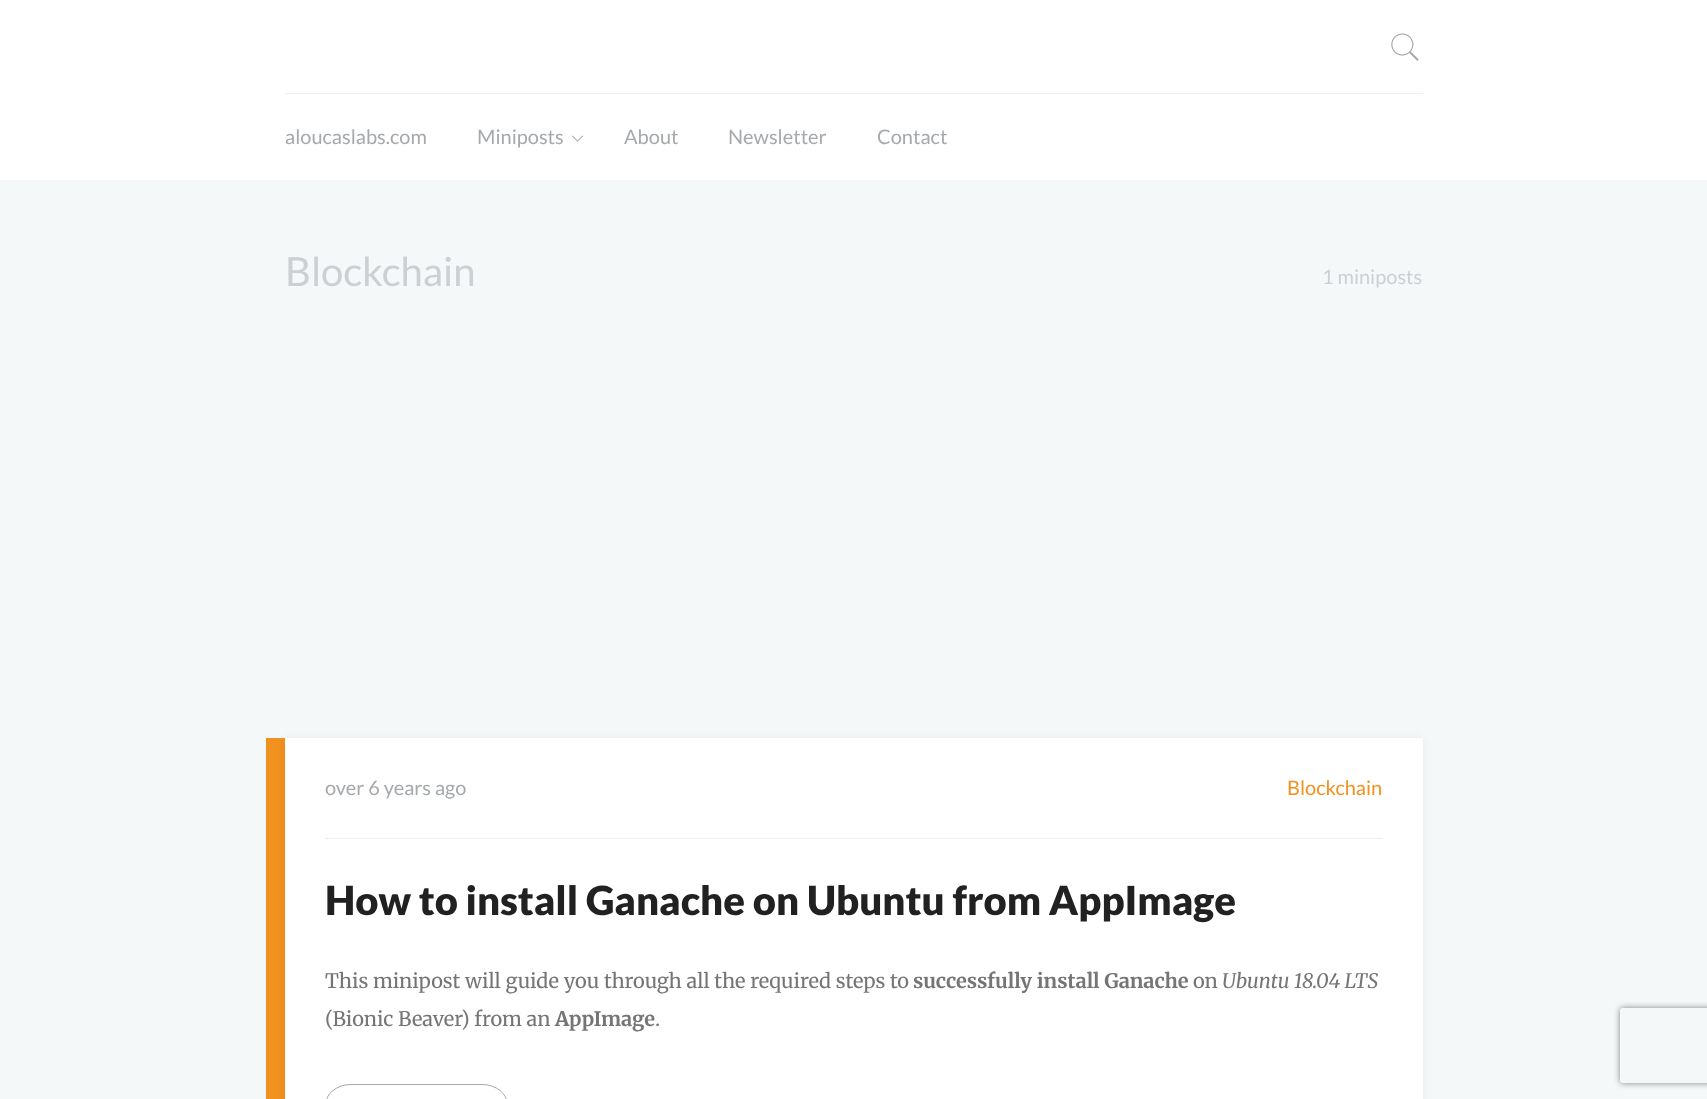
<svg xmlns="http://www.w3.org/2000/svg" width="1707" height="1099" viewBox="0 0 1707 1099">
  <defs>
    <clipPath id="clip1"><path d="M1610 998H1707V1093H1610ZM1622.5 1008H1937.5C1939 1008 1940 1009 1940 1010.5V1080.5C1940 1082 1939 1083 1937.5 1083H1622.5C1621 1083 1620 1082 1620 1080.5V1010.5C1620 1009 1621 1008 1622.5 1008Z" clip-rule="evenodd"/></clipPath>
  </defs>
  <rect width="100%" height="100%" fill="rgb(245,248,249)"/>
  <rect x="0" y="0" width="1707" height="180" fill="rgb(255,255,255)"/>
  <rect x="285" y="93" width="1138" height="1" fill="rgb(236,239,242)"/>
  <image x="1391" y="33" width="28" height="28" href="pic1.png"/>
  <g font-family="Lato" font-size="20" fill="rgb(166,169,172)">
    <text x="285" y="144">aloucaslabs.com</text>
    <text x="477" y="144">Miniposts</text>
  </g>
  <image x="572" y="135" width="11" height="7" href="pic2.png"/>
  <g font-family="Lato" font-size="20" fill="rgb(166,169,172)">
    <text x="624" y="144">About</text>
    <text x="728" y="144">Newsletter</text>
    <text x="877" y="144">Contact</text>
  </g>
  <text x="285" y="286" font-family="Lato" font-size="40" fill="rgb(204,207,211)">Blockchain</text>
  <text x="1322" y="284" font-family="Lato" font-size="20" fill="rgb(204,207,211)">1 miniposts</text>
  <rect x="266" y="738" width="19" height="361" fill="rgb(241,145,31)"/>
  <rect x="285" y="738" width="1138" height="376" fill="rgba(0,0,0,0.05)" filter="blur(5px)"/>
  <rect x="285" y="738" width="1138" height="361" fill="rgb(255,255,255)"/>
  <rect x="325" y="838" width="1058" height="1" fill="rgb(236,239,242)"/>
  <text x="325" y="795" font-family="Lato" font-size="20" fill="rgb(166,169,172)">over 6 years ago</text>
  <text x="1287" y="795" font-family="Lato" font-size="20" fill="rgb(241,145,31)">Blockchain</text>
  <text x="325" y="915" font-family="Lato" font-size="40" font-weight="900" fill="rgb(33,33,33)">How to install Ganache on Ubuntu from AppImage</text>
  <text x="325" y="988" font-family="Merriweather" font-size="20" letter-spacing="-0.05" fill="rgb(117,117,117)">This minipost will guide you through all the required steps to</text>
  <text x="913" y="988" font-family="Merriweather" font-size="20" font-weight="bold" letter-spacing="-0.05" fill="rgb(117,117,117)">successfully install Ganache</text>
  <text x="1193" y="988" font-family="Merriweather" font-size="20" letter-spacing="-0.05" fill="rgb(117,117,117)">on</text>
  <text x="1222" y="988" font-family="Merriweather" font-size="20" font-style="italic" letter-spacing="-0.05" fill="rgb(117,117,117)">Ubuntu 18.04 LTS</text>
  <text x="325" y="1026" font-family="Merriweather" font-size="20" letter-spacing="-0.05" fill="rgb(117,117,117)">(Bionic Beaver) from an</text>
  <text x="555" y="1026" font-family="Merriweather" font-size="20" font-weight="bold" letter-spacing="-0.05" fill="rgb(117,117,117)">AppImage</text>
  <text x="655" y="1026" font-family="Merriweather" font-size="20" letter-spacing="-0.05" fill="rgb(117,117,117)">.</text>
  <rect x="325.5" y="1084.5" width="182" height="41" rx="25.5" fill="none" stroke="rgb(166,169,172)"/>
  <g clip-path="url(#clip1)">
    <rect x="1620" y="1008" width="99" height="75" rx="2.5" fill="rgb(128,128,128)" filter="blur(3px)"/>
  </g>
</svg>
